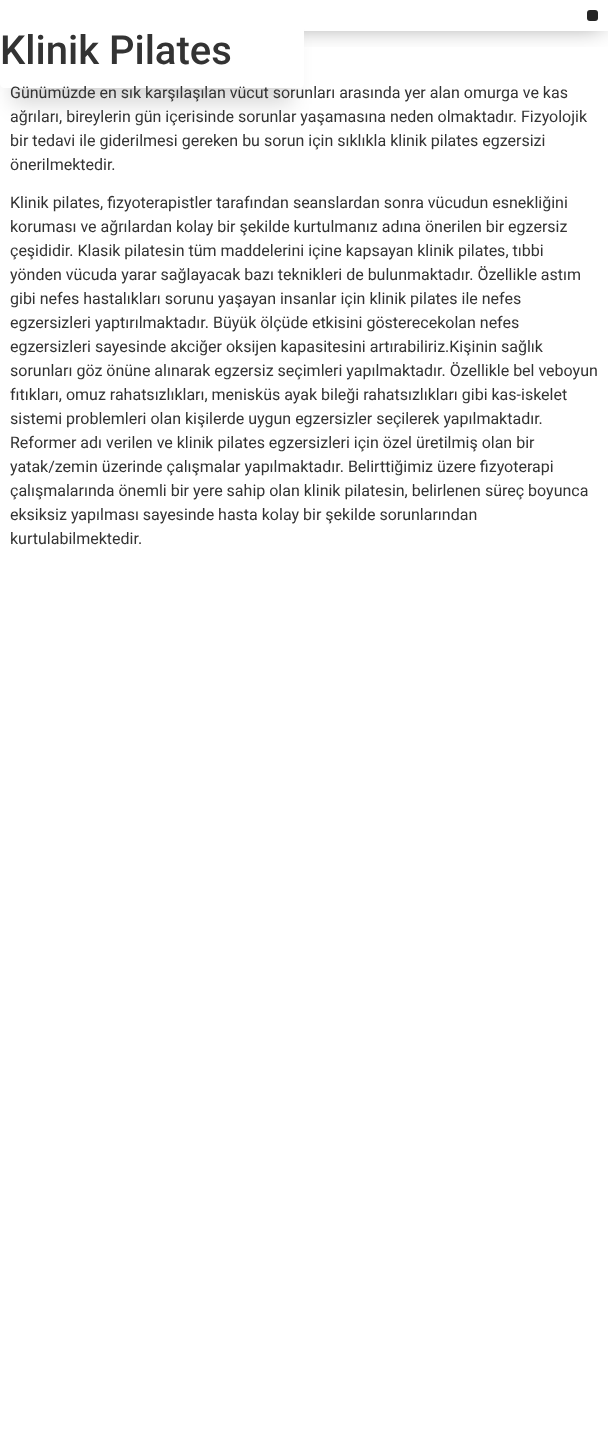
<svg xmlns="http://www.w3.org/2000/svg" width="608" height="1441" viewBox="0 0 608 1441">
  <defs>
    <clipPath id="clip1"><rect x="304" y="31" width="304" height="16"/></clipPath>
  </defs>
  <rect width="100%" height="100%" fill="rgb(255,255,255)"/>
  <g clip-path="url(#clip1)">
    <rect x="6" y="6" width="596" height="19" fill="rgba(0,0,0,0.5)" filter="blur(12.5px)"/>
  </g>
  <rect x="12" y="40" width="280" height="64" fill="rgba(0,0,0,0.15)" filter="blur(10px)"/>
  <path d="M0 0H304V83C304 86 302 88 299 88H5C2 88 0 86 0 83Z" fill="rgb(255,255,255)"/>
  <rect x="587" y="10" width="11" height="11" rx="3" fill="rgb(37,37,37)"/>
  <text x="0" y="64" font-family="Roboto" font-size="40" font-weight="500" fill="rgb(51,51,51)">Klinik Pilates</text>
  <g font-family="Roboto" font-size="16" fill="rgb(51,51,51)">
    <text>
      <tspan x="10" y="98">Günümüzde en sık karşılaşılan vücut sorunları arasında yer alan omurga ve kas</tspan>
      <tspan x="10" y="122">ağrıları, bireylerin gün içerisinde sorunlar yaşamasına neden olmaktadır. Fizyolojik</tspan>
      <tspan x="10" y="146">bir tedavi ile giderilmesi gereken bu sorun için sıklıkla klinik pilates egzersizi</tspan>
      <tspan x="10" y="170">önerilmektedir.</tspan>
    </text>
    <text>
      <tspan x="10" y="208">Klinik pilates, fizyoterapistler tarafından seanslardan sonra vücudun esnekliğini</tspan>
      <tspan x="10" y="232">koruması ve ağrılardan kolay bir şekilde kurtulmanız adına önerilen bir egzersiz</tspan>
      <tspan x="10" y="256">çeşididir. Klasik pilatesin tüm maddelerini içine kapsayan klinik pilates, tıbbi</tspan>
      <tspan x="10" y="280">yönden vücuda yarar sağlayacak bazı teknikleri de bulunmaktadır. Özellikle astım</tspan>
      <tspan x="10" y="304">gibi nefes hastalıkları sorunu yaşayan insanlar için klinik pilates ile nefes</tspan>
      <tspan x="10" y="328">egzersizleri yaptırılmaktadır. Büyük ölçüde etkisini gösterecekolan nefes</tspan>
      <tspan x="10" y="352">egzersizleri sayesinde akciğer oksijen kapasitesini artırabiliriz.Kişinin sağlık</tspan>
      <tspan x="10" y="376">sorunları göz önüne alınarak egzersiz seçimleri yapılmaktadır. Özellikle bel veboyun</tspan>
      <tspan x="10" y="400">fıtıkları, omuz rahatsızlıkları, menisküs ayak bileği rahatsızlıkları gibi kas-iskelet</tspan>
      <tspan x="10" y="424">sistemi problemleri olan kişilerde uygun egzersizler seçilerek yapılmaktadır.</tspan>
      <tspan x="10" y="448">Reformer adı verilen ve klinik pilates egzersizleri için özel üretilmiş olan bir</tspan>
      <tspan x="10" y="472">yatak/zemin üzerinde çalışmalar yapılmaktadır. Belirttiğimiz üzere fizyoterapi</tspan>
      <tspan x="10" y="496">çalışmalarında önemli bir yere sahip olan klinik pilatesin, belirlenen süreç boyunca</tspan>
      <tspan x="10" y="520">eksiksiz yapılması sayesinde hasta kolay bir şekilde sorunlarından</tspan>
      <tspan x="10" y="544">kurtulabilmektedir.</tspan>
    </text>
  </g>
</svg>
